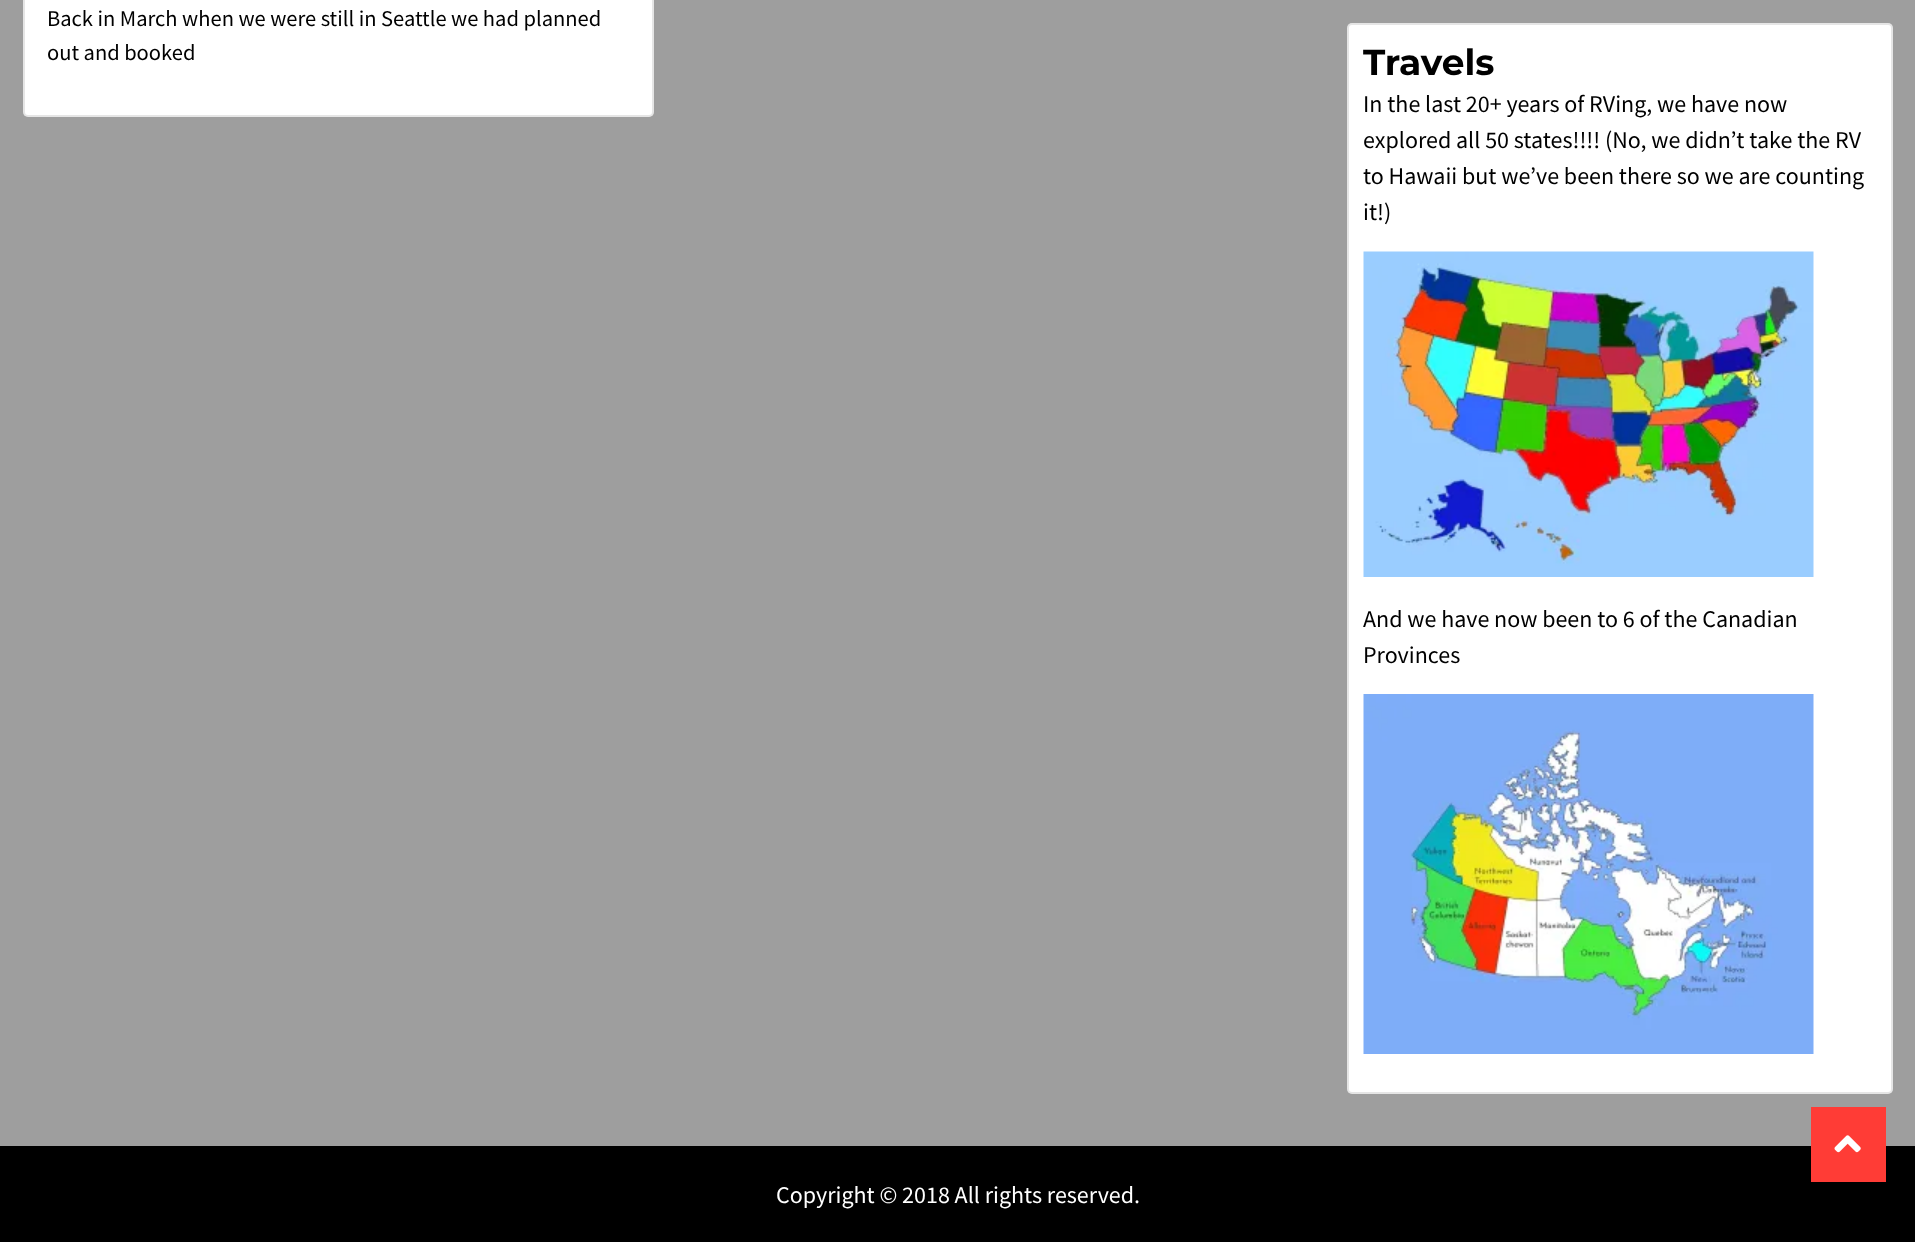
<svg xmlns="http://www.w3.org/2000/svg" width="1915" height="1242" viewBox="0 0 1915 1242">
  <rect width="100%" height="100%" fill="rgb(158,158,158)"/>
  <rect x="23" y="-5" width="631" height="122" rx="5" fill="rgb(255,255,255)"/>
  <rect x="24" y="-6" width="629" height="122" rx="4" fill="none" stroke="rgba(0,1,1,0.1)" stroke-width="2"/>
  <g font-family="Source Sans Pro" font-size="22.5" fill="rgb(0,0,0)">
    <text>
      <tspan x="47" y="26">Back in March when we were still in Seattle we had planned</tspan>
      <tspan x="47" y="60">out and booked</tspan>
    </text>
  </g>
  <rect x="1347" y="23" width="546" height="1071" rx="5" fill="rgb(255,255,255)"/>
  <rect x="1348" y="24" width="544" height="1069" rx="4" fill="none" stroke="rgba(0,1,1,0.1)" stroke-width="2"/>
  <text x="1363" y="75" font-family="Montserrat" font-size="36" font-weight="bold" fill="rgb(0,0,0)">Travels</text>
  <g font-family="Source Sans Pro" font-size="24" fill="rgb(0,0,0)">
    <text>
      <tspan x="1363" y="112">In the last 20+ years of RVing, we have now</tspan>
      <tspan x="1363" y="148">explored all 50 states!!!! (No, we didn’t take the RV</tspan>
      <tspan x="1363" y="184">to Hawaii but we’ve been there so we are counting</tspan>
      <tspan x="1363" y="220">it!)</tspan>
    </text>
  </g>
  <image x="1363" y="251" width="451" height="326" href="pic1.png"/>
  <g font-family="Source Sans Pro" font-size="24" fill="rgb(0,0,0)">
    <text>
      <tspan x="1363" y="627">And we have now been to 6 of the Canadian</tspan>
      <tspan x="1363" y="663">Provinces</tspan>
    </text>
  </g>
  <image x="1363" y="694" width="451" height="360" href="pic2.png"/>
  <rect x="0" y="1146" width="1915" height="96" fill="rgb(0,0,0)"/>
  <text x="776" y="1203" font-family="Source Sans Pro" font-size="24" fill="rgb(255,255,255)">Copyright © 2018 All rights reserved.</text>
  <rect x="1811" y="1107" width="75" height="75" fill="rgb(255,60,54)"/>
  <image x="1834" y="1135" width="27" height="18" href="pic3.png"/>
</svg>
